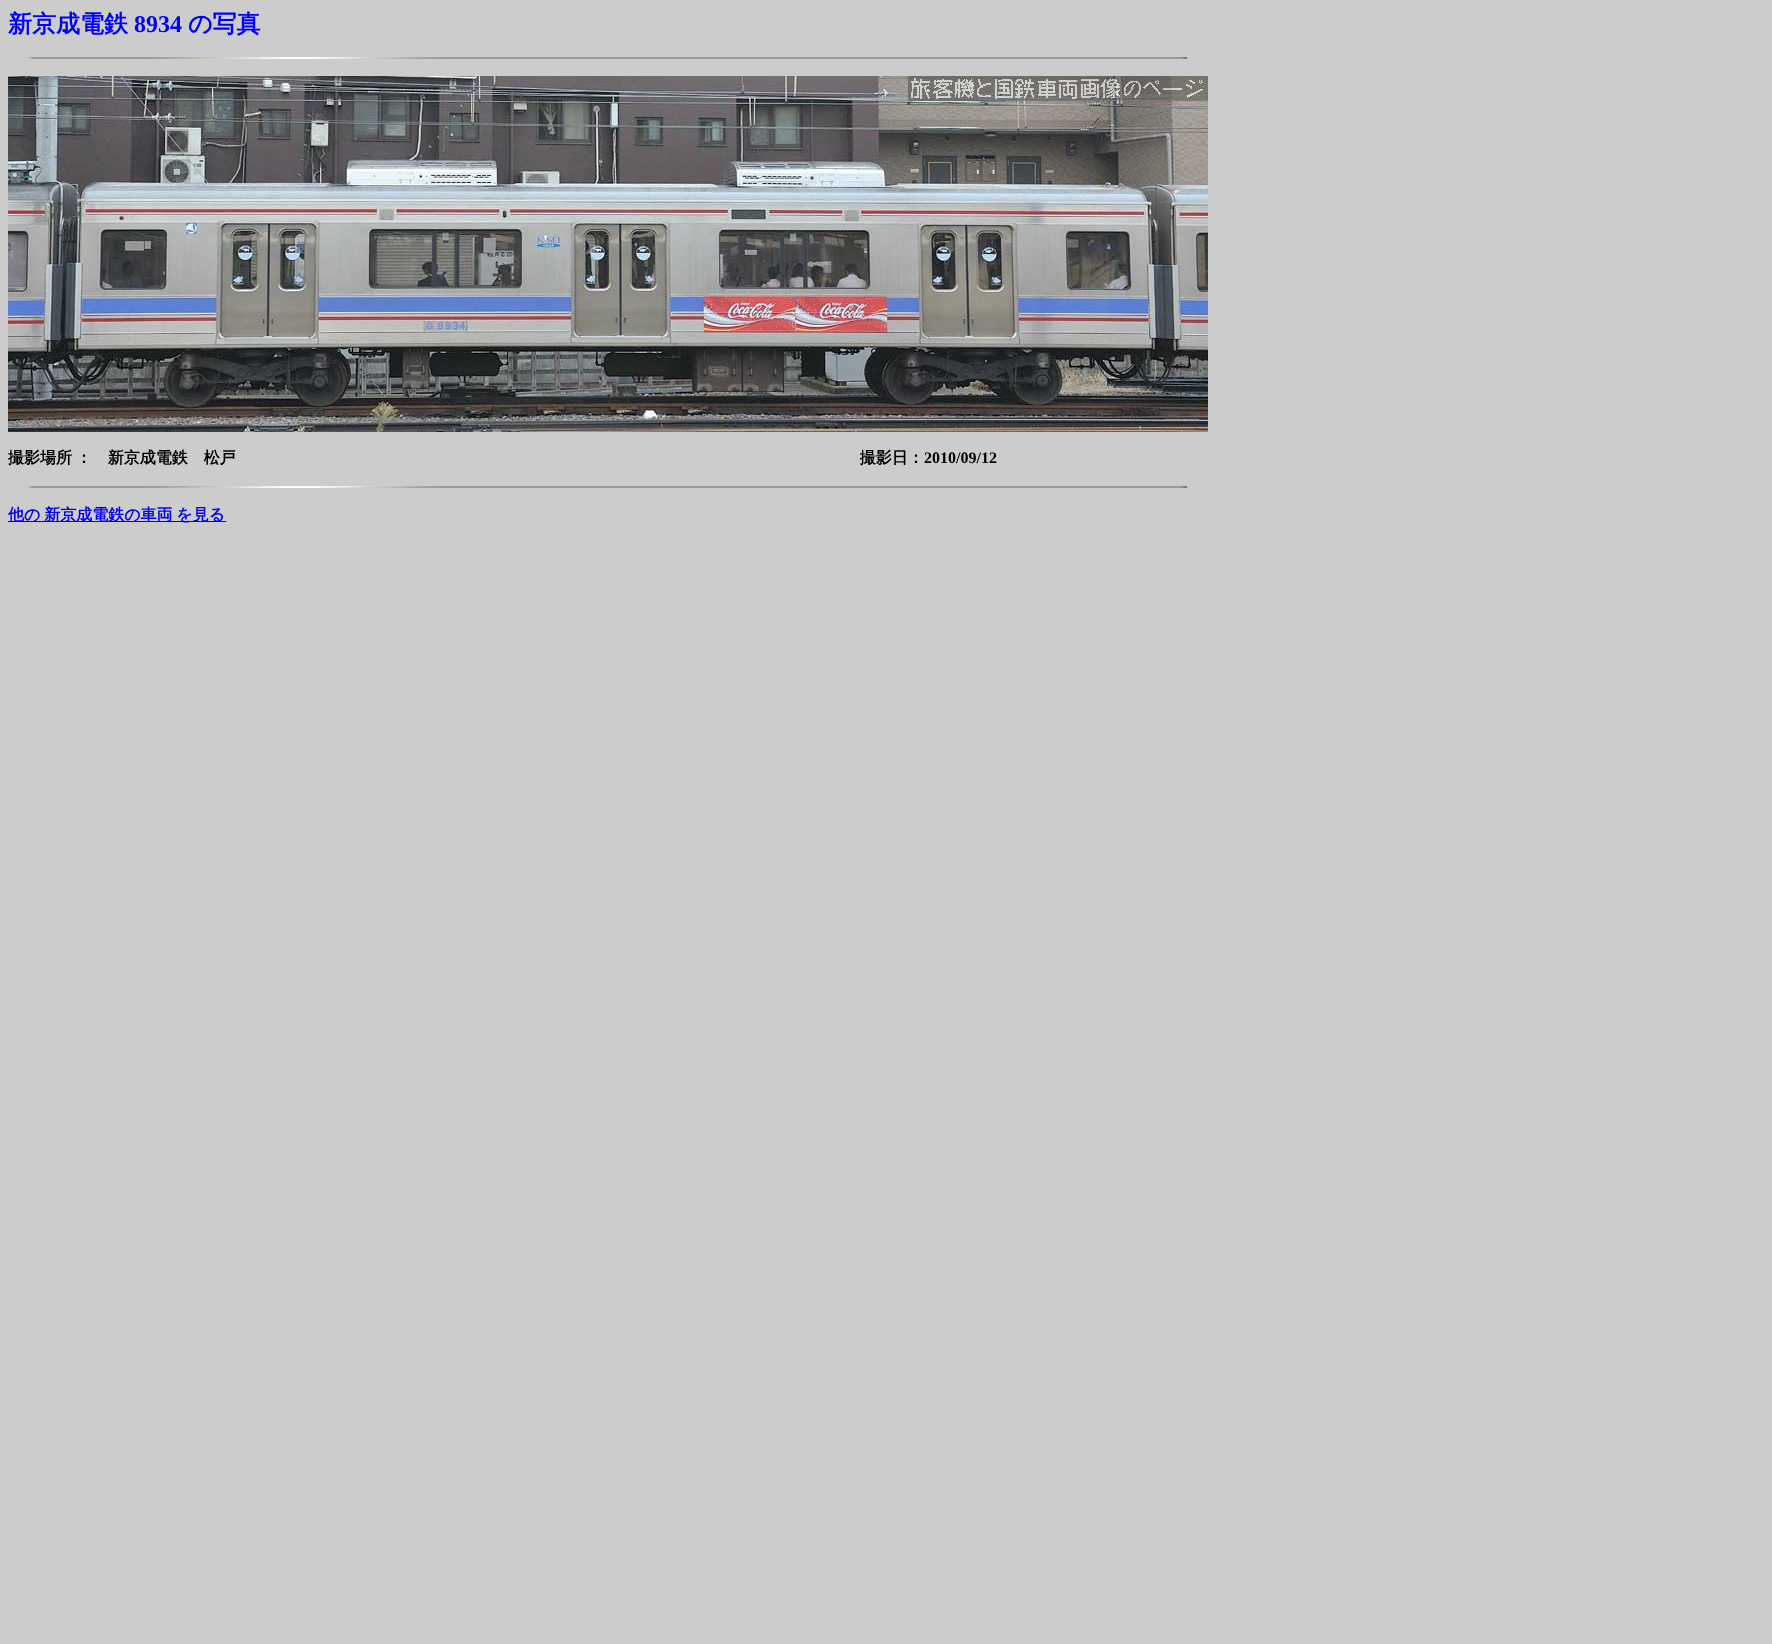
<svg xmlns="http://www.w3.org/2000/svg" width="1772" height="1644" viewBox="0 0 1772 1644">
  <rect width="100%" height="100%" fill="rgb(204,204,204)"/>
  <text x="8" y="32" font-family="WenQuanYi Zen Hei" font-size="24" font-weight="bold" fill="rgb(0,0,255)">新京成電鉄</text>
  <text x="134" y="32" font-family="Liberation Serif" font-size="24" font-weight="bold" fill="rgb(0,0,255)">8934</text>
  <text x="188" y="32" font-family="WenQuanYi Zen Hei" font-size="24" font-weight="bold" fill="rgb(0,0,255)">の写真</text>
  <image x="28" y="57" width="1160" height="2" href="pic1.png"/>
  <image x="8" y="76" width="1200" height="356" href="pic2.png"/>
  <text x="8" y="463" word-spacing="-1" font-family="WenQuanYi Zen Hei" font-size="16" font-weight="bold" fill="rgb(0,0,0)">撮影場所 ：　新京成電鉄　松戸　　　　　　　　　　　　　　　　　　　　　　　　　　　　　　　　　　　　　　　撮影日：</text>
  <text x="924" y="463" font-family="Liberation Serif" font-size="16" font-weight="bold" fill="rgb(0,0,0)">2010/09/12</text>
  <image x="28" y="486" width="1160" height="2" href="pic1.png"/>
  <rect x="8" y="521" width="218" height="1" fill="rgb(0,0,238)"/>
  <text x="8" y="520" word-spacing="-1" font-family="WenQuanYi Zen Hei" font-size="16" font-weight="bold" fill="rgb(0,0,238)">他の 新京成電鉄の車両 を見る</text>
</svg>
